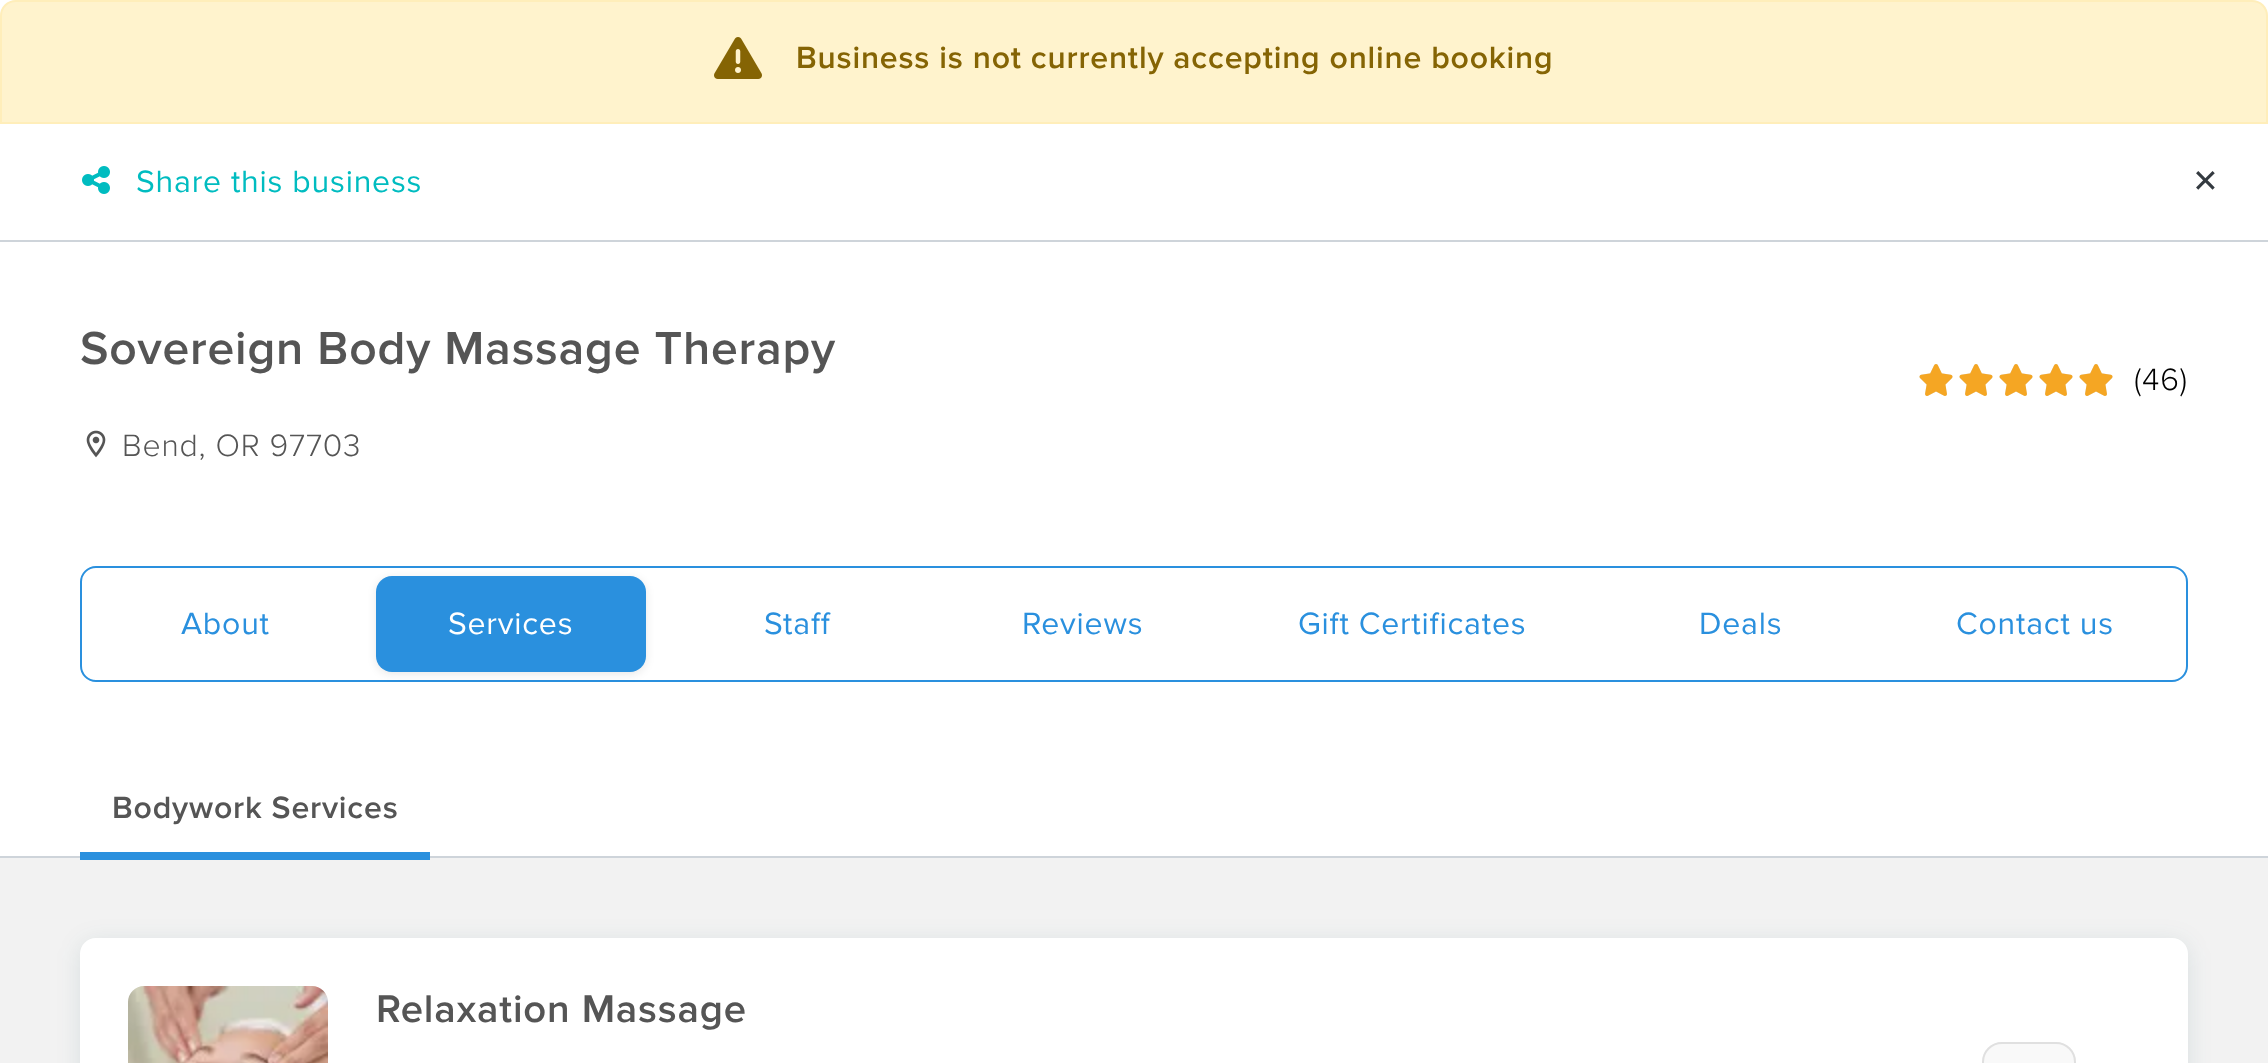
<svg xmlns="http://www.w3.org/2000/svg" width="2268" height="1063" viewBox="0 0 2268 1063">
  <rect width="100%" height="100%" fill="rgb(255,255,255)"/>
  <path d="M16 1H2252C2260.5 1 2267 7.5 2267 16V123H1V16C1 7.5 7.5 1 16 1Z" fill="rgb(255,243,205)" stroke="rgb(255,238,186)" stroke-width="2"/>
  <image x="714" y="37" width="48" height="42" href="pic1.png"/>
  <text x="796" y="68" font-family="Proxima Nova" font-size="32" font-weight="600" letter-spacing="0.8" fill="rgb(133,100,4)">Business is not currently accepting online booking</text>
  <rect x="0" y="240" width="2268" height="2" fill="rgb(206,212,218)"/>
  <image x="82" y="166" width="28" height="28" href="pic2.png"/>
  <text x="136" y="192" font-family="Proxima Nova" font-size="32" letter-spacing="0.8" fill="rgb(0,188,192)">Share this business</text>
  <text x="2192" y="192" font-family="DejaVu Sans" font-size="32" letter-spacing="0.8" fill="rgb(52,58,64)">✕</text>
  <text x="80" y="364" font-family="Proxima Nova" font-size="48" font-weight="600" letter-spacing="0.8" fill="rgb(85,85,85)">Sovereign Body Massage Therapy</text>
  <image x="86" y="430" width="20" height="28" href="pic3.png"/>
  <text x="122" y="456" font-family="Proxima Nova" font-size="32" font-weight="300" letter-spacing="0.8" fill="rgb(85,85,85)">Bend, OR 97703</text>
  <image x="1919" y="364" width="194" height="32" href="pic4.png"/>
  <image x="1919" y="364" width="194" height="32" href="pic5.png"/>
  <text x="2134" y="390" font-family="Proxima Nova" font-size="32" font-weight="300" letter-spacing="0.8" fill="rgb(0,0,0)">(46)</text>
  <rect x="81" y="567" width="2106" height="114" rx="15" fill="none" stroke="rgb(42,144,222)" stroke-width="2"/>
  <text x="181" y="634" font-family="Proxima Nova" font-size="32" letter-spacing="0.8" fill="rgb(42,144,222)">About</text>
  <rect x="376" y="578" width="270" height="96" rx="16" fill="rgba(18,18,18,0.1)" filter="blur(4px)"/>
  <rect x="376" y="576" width="270" height="96" rx="16" fill="rgb(42,144,222)"/>
  <text x="448" y="634" font-family="Proxima Nova" font-size="32" letter-spacing="0.8" fill="rgb(255,255,255)">Services</text>
  <g font-family="Proxima Nova" font-size="32" letter-spacing="0.8" fill="rgb(42,144,222)">
    <text x="764" y="634">Staff</text>
    <text x="1022" y="634">Reviews</text>
    <text x="1298" y="634">Gift Certificates</text>
    <text x="1699" y="634">Deals</text>
    <text x="1956" y="634">Contact us</text>
  </g>
  <text x="112" y="818" font-family="Proxima Nova" font-size="32" font-weight="600" letter-spacing="0.8" fill="rgb(85,85,85)">Bodywork Services</text>
  <rect x="0" y="858" width="2268" height="205" fill="rgb(242,242,242)"/>
  <rect x="0" y="856" width="2268" height="2" fill="rgb(206,212,218)"/>
  <rect x="80" y="852" width="350" height="8" fill="rgb(42,144,222)"/>
  <rect x="80" y="942" width="2108" height="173" rx="16" fill="rgba(3,70,74,0.1)" filter="blur(12px)"/>
  <path d="M96 938H2172C2181 938 2188 945 2188 954V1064H80V954C80 945 87 938 96 938Z" fill="rgb(255,255,255)"/>
  <image x="128" y="986" width="200" height="77" href="pic6.png"/>
  <text x="376" y="1022" font-family="Proxima Nova" font-size="40" font-weight="600" letter-spacing="0.8" fill="rgb(85,85,85)">Relaxation Massage</text>
  <path d="M2002 1042H2056C2067 1042 2076 1051 2076 1062V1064H1982V1062C1982 1051 1991 1042 2002 1042Z" fill="rgb(249,249,249)"/>
  <path d="M2002 1043H2056C2066.5 1043 2075 1051.5 2075 1062V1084H1983V1062C1983 1051.5 1991.5 1043 2002 1043Z" fill="none" stroke="rgb(224,224,224)" stroke-width="2"/>
</svg>
